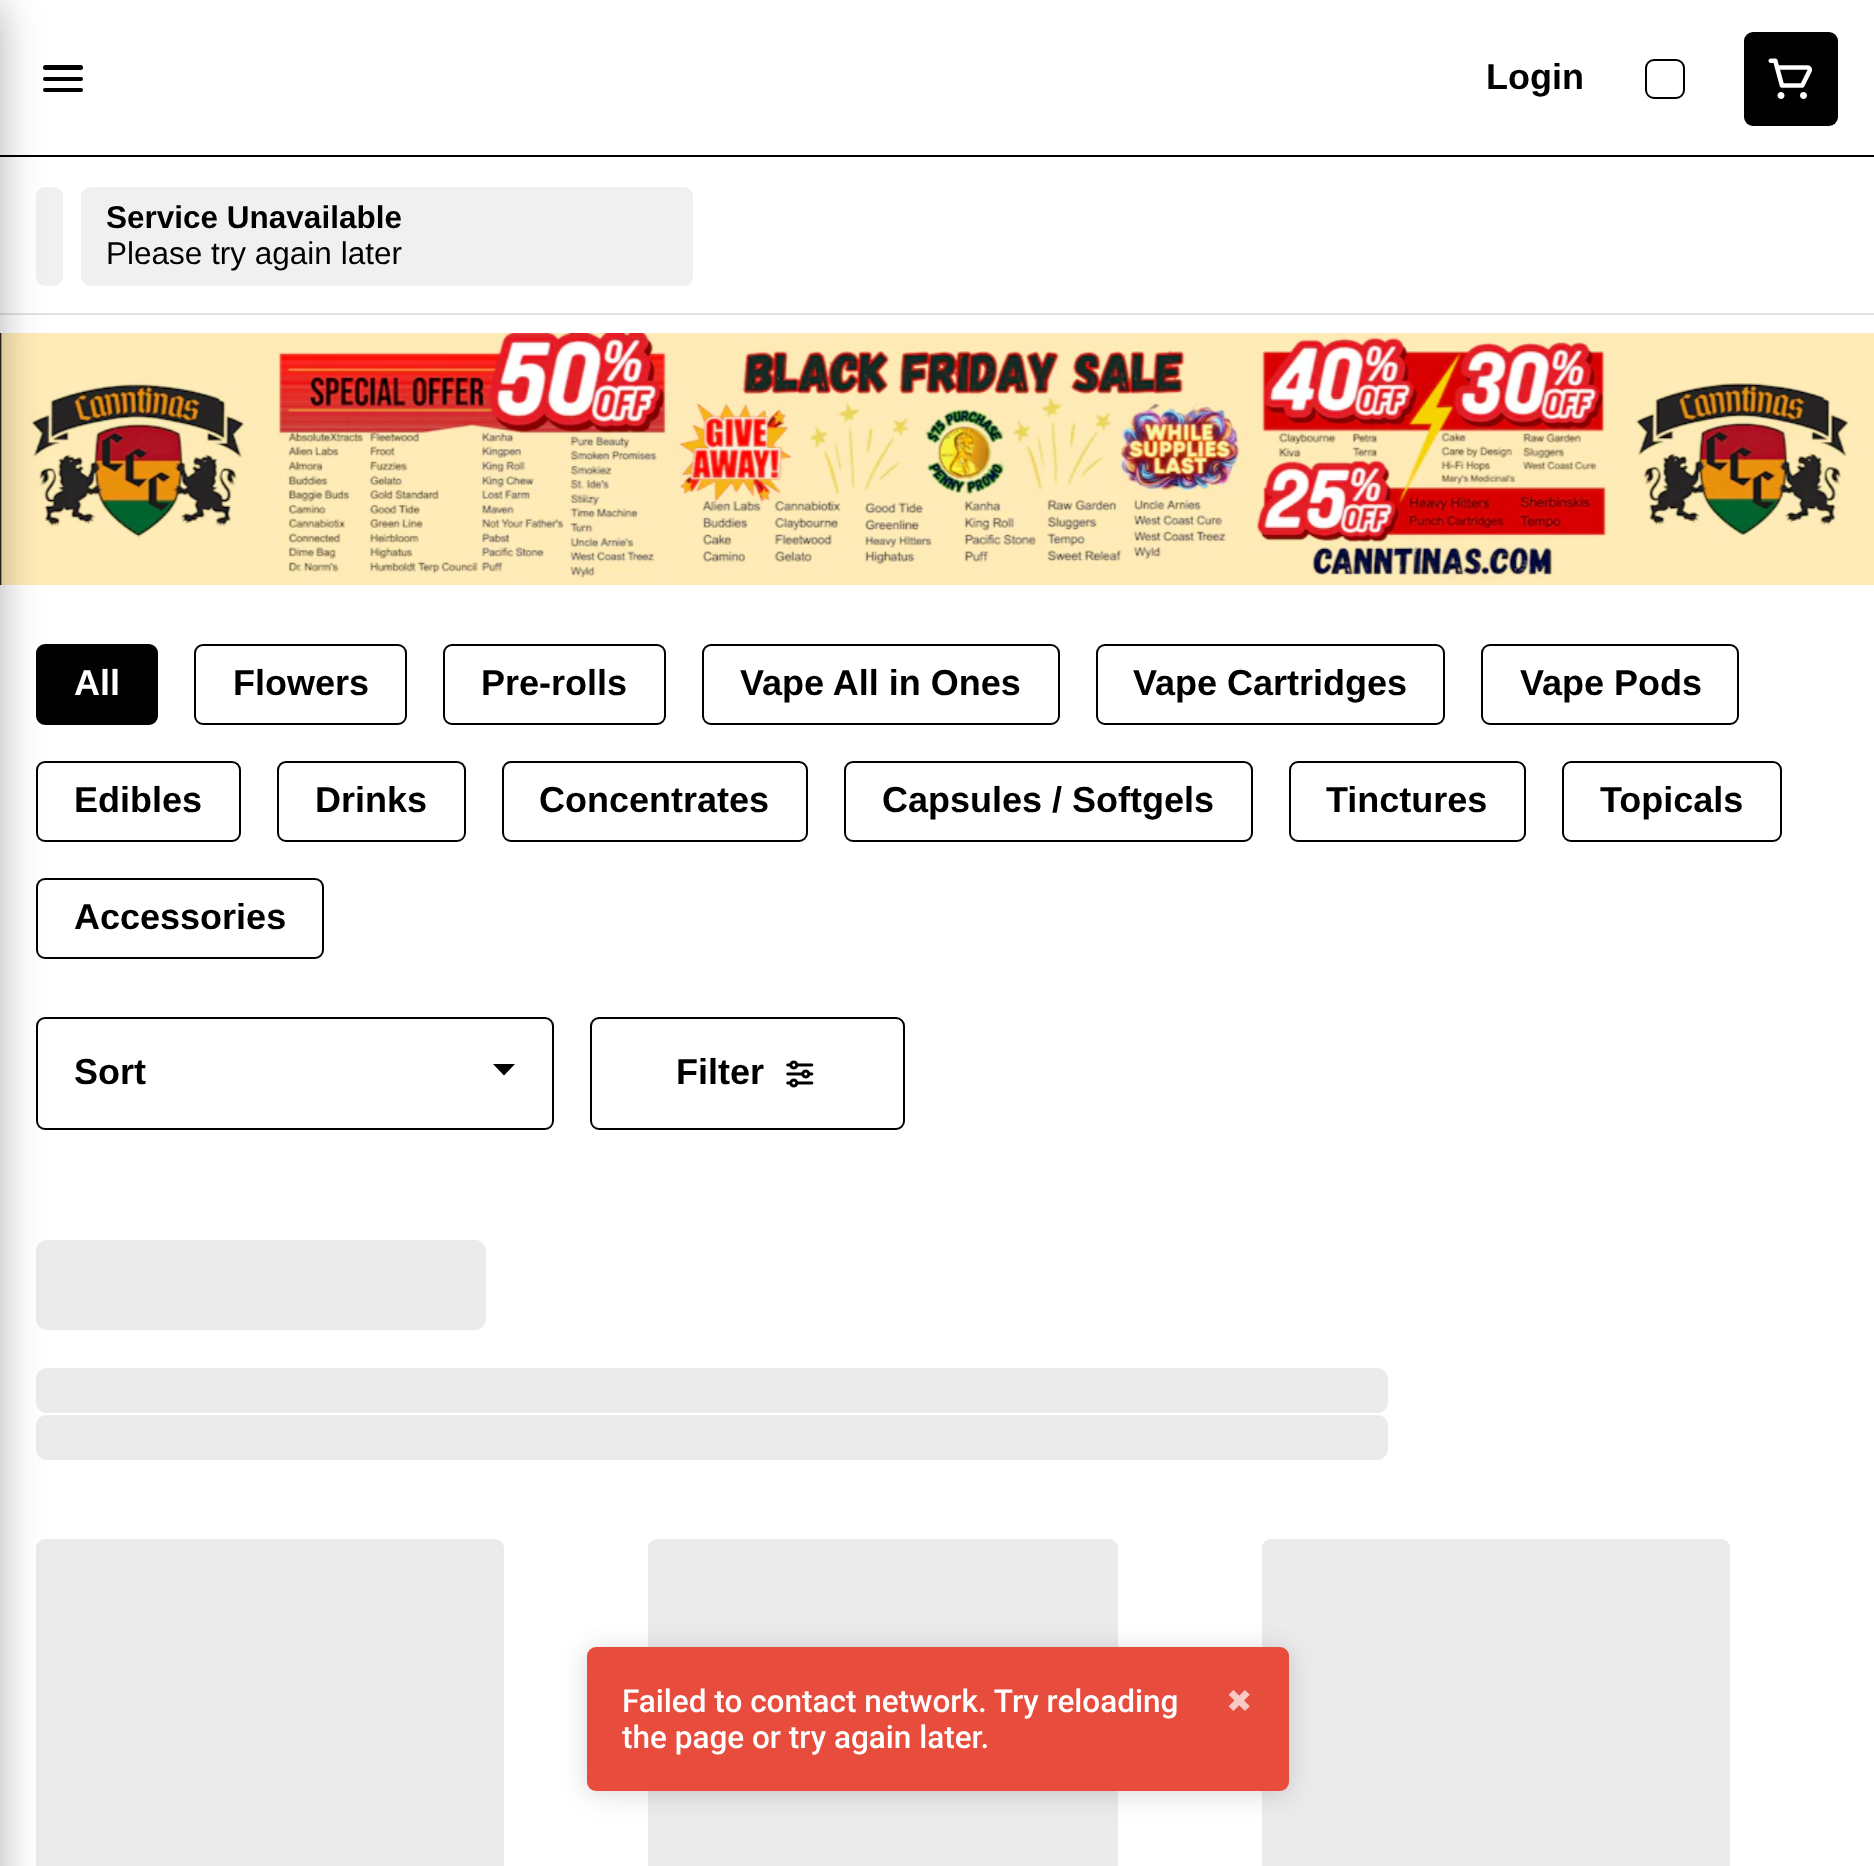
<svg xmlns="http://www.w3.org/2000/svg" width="1874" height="1866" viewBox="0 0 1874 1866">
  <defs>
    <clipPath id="clip1"><rect x="648" y="1539" width="470" height="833" rx="9"/></clipPath>
    <linearGradient id="g1" gradientUnits="userSpaceOnUse" x1="179" y1="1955" x2="650" y2="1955"><stop offset="0" stop-color="rgb(235,235,235)"/><stop offset="0.5" stop-color="rgb(245,245,245)"/><stop offset="1" stop-color="rgb(235,235,235)"/></linearGradient>
  </defs>
  <rect width="100%" height="100%" fill="rgb(255,255,255)"/>
  <rect x="0" y="155" width="1874" height="2" fill="rgb(0,0,0)"/>
  <rect x="43" y="77" width="40" height="4" rx="2" fill="rgb(0,0,0)"/>
  <rect x="43" y="88" width="40" height="4" rx="2" fill="rgb(0,0,0)"/>
  <rect x="43" y="65" width="40" height="5" rx="2.5" fill="rgb(0,0,0)"/>
  <rect x="0" y="313" width="1874" height="2" fill="rgb(225,225,225)"/>
  <rect x="37" y="188" width="25" height="97" rx="8" fill="rgb(240,240,240)" stroke="rgb(240,240,240)" stroke-width="2"/>
  <rect x="0" y="333" width="2" height="252" fill="rgb(0,0,0)"/>
  <image x="0" y="333" width="1874" height="252" href="pic2.png"/>
  <rect x="37" y="645" width="120" height="79" rx="8" fill="rgb(0,0,0)" stroke="rgb(0,0,0)" stroke-width="2"/>
  <rect x="37" y="762" width="203" height="79" rx="8" fill="none" stroke="rgb(0,0,0)" stroke-width="2"/>
  <rect x="37" y="879" width="286" height="79" rx="8" fill="none" stroke="rgb(0,0,0)" stroke-width="2"/>
  <rect x="37" y="1018" width="516" height="111" rx="8" fill="none" stroke="rgb(0,0,0)" stroke-width="2"/>
  <rect x="36" y="1240" width="450" height="90" rx="11" fill="rgb(235,235,235)"/>
  <rect x="36" y="1368" width="1352" height="45" rx="11" fill="rgb(235,235,235)"/>
  <rect x="36" y="1415" width="1352" height="45" rx="11" fill="rgb(235,235,235)"/>
  <rect x="36" y="1539" width="468" height="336" rx="9" fill="rgb(235,235,235)"/>
  <rect x="-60" y="5" width="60" height="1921" fill="rgba(0,0,0,0.3)" filter="blur(20px)"/>
  <text x="1486" y="89" font-family="Liberation Sans" font-size="36" font-weight="bold" fill="rgb(0,0,0)">Login</text>
  <rect x="1646" y="60" width="38" height="38" rx="8" fill="none" stroke="rgb(0,0,0)" stroke-width="2"/>
  <rect x="1744" y="32" width="94" height="94" rx="9" fill="rgb(0,0,0)"/>
  <image x="1768" y="58" width="45" height="41" href="pic1.png"/>
  <rect x="82" y="188" width="610" height="97" rx="8" fill="rgb(240,240,240)" stroke="rgb(240,240,240)" stroke-width="2"/>
  <text x="106" y="228" font-family="Liberation Sans" font-size="31.5" font-weight="bold" fill="rgb(0,0,0)">Service Unavailable</text>
  <text x="106" y="264" font-family="Liberation Sans" font-size="31.5" fill="rgb(0,0,0)">Please try again later</text>
  <text x="74" y="695" font-family="Liberation Sans" font-size="36" font-weight="bold" fill="rgb(255,255,255)">All</text>
  <rect x="195" y="645" width="211" height="79" rx="8" fill="none" stroke="rgb(0,0,0)" stroke-width="2"/>
  <text x="233" y="695" font-family="Liberation Sans" font-size="36" font-weight="bold" fill="rgb(0,0,0)">Flowers</text>
  <rect x="444" y="645" width="221" height="79" rx="8" fill="none" stroke="rgb(0,0,0)" stroke-width="2"/>
  <text x="481" y="695" font-family="Liberation Sans" font-size="36" font-weight="bold" fill="rgb(0,0,0)">Pre-rolls</text>
  <rect x="703" y="645" width="356" height="79" rx="8" fill="none" stroke="rgb(0,0,0)" stroke-width="2"/>
  <text x="740" y="695" font-family="Liberation Sans" font-size="36" font-weight="bold" fill="rgb(0,0,0)">Vape All in Ones</text>
  <rect x="1097" y="645" width="347" height="79" rx="8" fill="none" stroke="rgb(0,0,0)" stroke-width="2"/>
  <text x="1133" y="695" font-family="Liberation Sans" font-size="36" font-weight="bold" fill="rgb(0,0,0)">Vape Cartridges</text>
  <rect x="1482" y="645" width="256" height="79" rx="8" fill="none" stroke="rgb(0,0,0)" stroke-width="2"/>
  <g font-family="Liberation Sans" font-size="36" font-weight="bold" fill="rgb(0,0,0)">
    <text x="1520" y="695">Vape Pods</text>
    <text x="74" y="812">Edibles</text>
  </g>
  <rect x="278" y="762" width="187" height="79" rx="8" fill="none" stroke="rgb(0,0,0)" stroke-width="2"/>
  <text x="315" y="812" font-family="Liberation Sans" font-size="36" font-weight="bold" fill="rgb(0,0,0)">Drinks</text>
  <rect x="503" y="762" width="304" height="79" rx="8" fill="none" stroke="rgb(0,0,0)" stroke-width="2"/>
  <text x="539" y="812" font-family="Liberation Sans" font-size="36" font-weight="bold" fill="rgb(0,0,0)">Concentrates</text>
  <rect x="845" y="762" width="407" height="79" rx="8" fill="none" stroke="rgb(0,0,0)" stroke-width="2"/>
  <text x="882" y="812" font-family="Liberation Sans" font-size="36" font-weight="bold" fill="rgb(0,0,0)">Capsules / Softgels</text>
  <rect x="1290" y="762" width="235" height="79" rx="8" fill="none" stroke="rgb(0,0,0)" stroke-width="2"/>
  <text x="1326" y="812" font-family="Liberation Sans" font-size="36" font-weight="bold" fill="rgb(0,0,0)">Tinctures</text>
  <rect x="1563" y="762" width="218" height="79" rx="8" fill="none" stroke="rgb(0,0,0)" stroke-width="2"/>
  <g font-family="Liberation Sans" font-size="36" font-weight="bold" fill="rgb(0,0,0)">
    <text x="1600" y="812">Topicals</text>
    <text x="74" y="929">Accessories</text>
    <text x="74" y="1084">Sort</text>
  </g>
  <path d="M493 1064H515L504 1075.5Z" fill="rgb(0,0,0)"/>
  <rect x="591" y="1018" width="313" height="111" rx="8" fill="none" stroke="rgb(0,0,0)" stroke-width="2"/>
  <text x="676" y="1084" font-family="Liberation Sans" font-size="36" font-weight="bold" fill="rgb(0,0,0)">Filter</text>
  <image x="786" y="1060" width="28" height="28" href="pic3.png"/>
  <rect x="648" y="1539" width="470" height="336" rx="9" fill="rgb(235,235,235)"/>
  <g clip-path="url(#clip1)">
    <rect x="648" y="1539" width="2" height="327" fill="url(#g1)"/>
  </g>
  <rect x="1262" y="1539" width="468" height="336" rx="9" fill="rgb(235,235,235)"/>
  <rect x="587" y="1652" width="702" height="144" rx="9" fill="rgba(0,0,0,0.05)" filter="blur(17px)"/>
  <rect x="587" y="1649" width="702" height="144" rx="9" fill="rgba(0,0,0,0.1)" filter="blur(11px)"/>
  <rect x="587" y="1647" width="702" height="144" rx="9" fill="rgb(231,76,60)"/>
  <g font-family="Roboto" font-size="31.5" font-weight="500" fill="rgb(255,255,255)">
    <text>
      <tspan x="622" y="1712">Failed to contact network. Try reloading</tspan>
      <tspan x="622" y="1748">the page or try again later.</tspan>
    </text>
  </g>
  <text x="1226" y="1712" font-family="DejaVu Sans" font-size="31.5" fill="rgb(248,201,197)">✖︎</text>
</svg>
